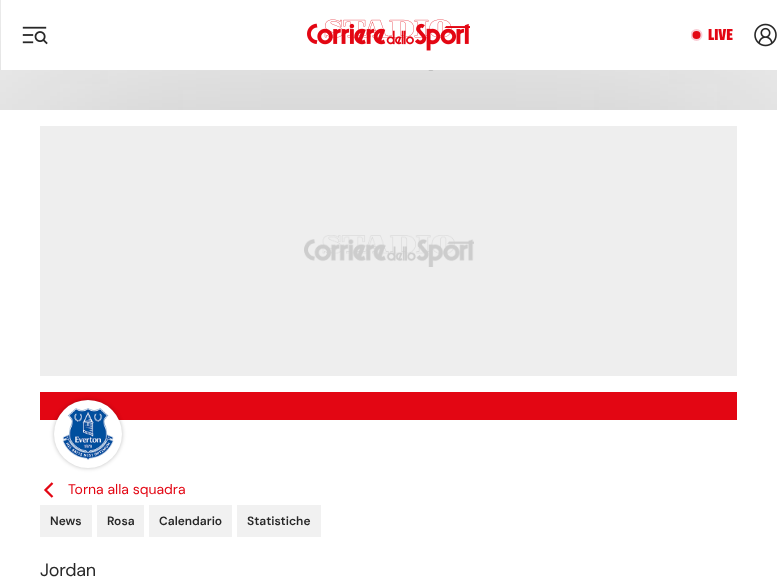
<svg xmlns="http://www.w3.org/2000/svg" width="777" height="580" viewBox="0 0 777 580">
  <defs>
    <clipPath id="clip1"><rect x="691" y="29" width="12" height="12"/></clipPath>
  </defs>
  <rect width="100%" height="100%" fill="rgb(238,238,238)"/>
  <image x="428" y="70" width="6" height="1" href="pic4.png"/>
  <rect x="0" y="110" width="777" height="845" fill="rgba(40,40,40,0.2)" filter="blur(125px)"/>
  <rect x="1" y="0" width="776" height="70" fill="rgb(255,255,255)"/>
  <image x="22" y="26" width="26" height="19" href="pic1.png"/>
  <image x="307" y="19" width="163" height="32" href="pic2.png"/>
  <circle cx="696.5" cy="35" r="5" fill="rgb(227,6,19)"/>
  <g clip-path="url(#clip1)">
    <circle cx="696.5" cy="35" r="5" fill="none" stroke="rgb(249,205,214)" stroke-width="2"/>
  </g>
  <text x="708" y="40" font-family="Saira Condensed" font-size="16" font-weight="900" fill="rgb(227,6,19)">LIVE</text>
  <image x="754" y="23" width="23" height="24" href="pic3.png"/>
  <rect x="0" y="110" width="777" height="470" fill="rgb(255,255,255)"/>
  <rect x="40" y="126" width="697" height="250" fill="rgb(238,238,238)"/>
  <image x="304" y="235" width="170" height="32" href="pic5.png"/>
  <rect x="40" y="392" width="697" height="28" fill="rgb(227,6,19)"/>
  <rect x="54" y="400" width="68" height="68" rx="34" fill="rgba(0,0,0,0.25)" filter="blur(2px)"/>
  <circle cx="88" cy="434" r="34" fill="rgb(255,255,255)"/>
  <image x="62" y="408" width="52" height="52" href="pic6.png"/>
  <path d="M52.5 497L45.5 490L52.5 483" fill="none" stroke="rgb(227,6,19)" stroke-width="2.3"/>
  <text x="68" y="494" font-family="DM Sans" font-size="14" fill="rgb(227,6,19)">Torna alla squadra</text>
  <rect x="40" y="505" width="52" height="32" fill="rgb(241,241,241)"/>
  <text x="50" y="525" font-family="DM Sans" font-size="12" font-weight="600" fill="rgb(40,40,40)">News</text>
  <rect x="97" y="505" width="47" height="32" fill="rgb(241,241,241)"/>
  <text x="107" y="525" font-family="DM Sans" font-size="12" font-weight="600" fill="rgb(40,40,40)">Rosa</text>
  <rect x="149" y="505" width="83" height="32" fill="rgb(241,241,241)"/>
  <text x="159" y="525" font-family="DM Sans" font-size="12" font-weight="600" fill="rgb(40,40,40)">Calendario</text>
  <rect x="237" y="505" width="84" height="32" fill="rgb(241,241,241)"/>
  <text x="247" y="525" font-family="DM Sans" font-size="12" font-weight="600" fill="rgb(40,40,40)">Statistiche</text>
  <text x="40" y="576" font-family="'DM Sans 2'" font-size="18" letter-spacing="-0.25" fill="rgb(40,40,40)">Jordan</text>
</svg>
